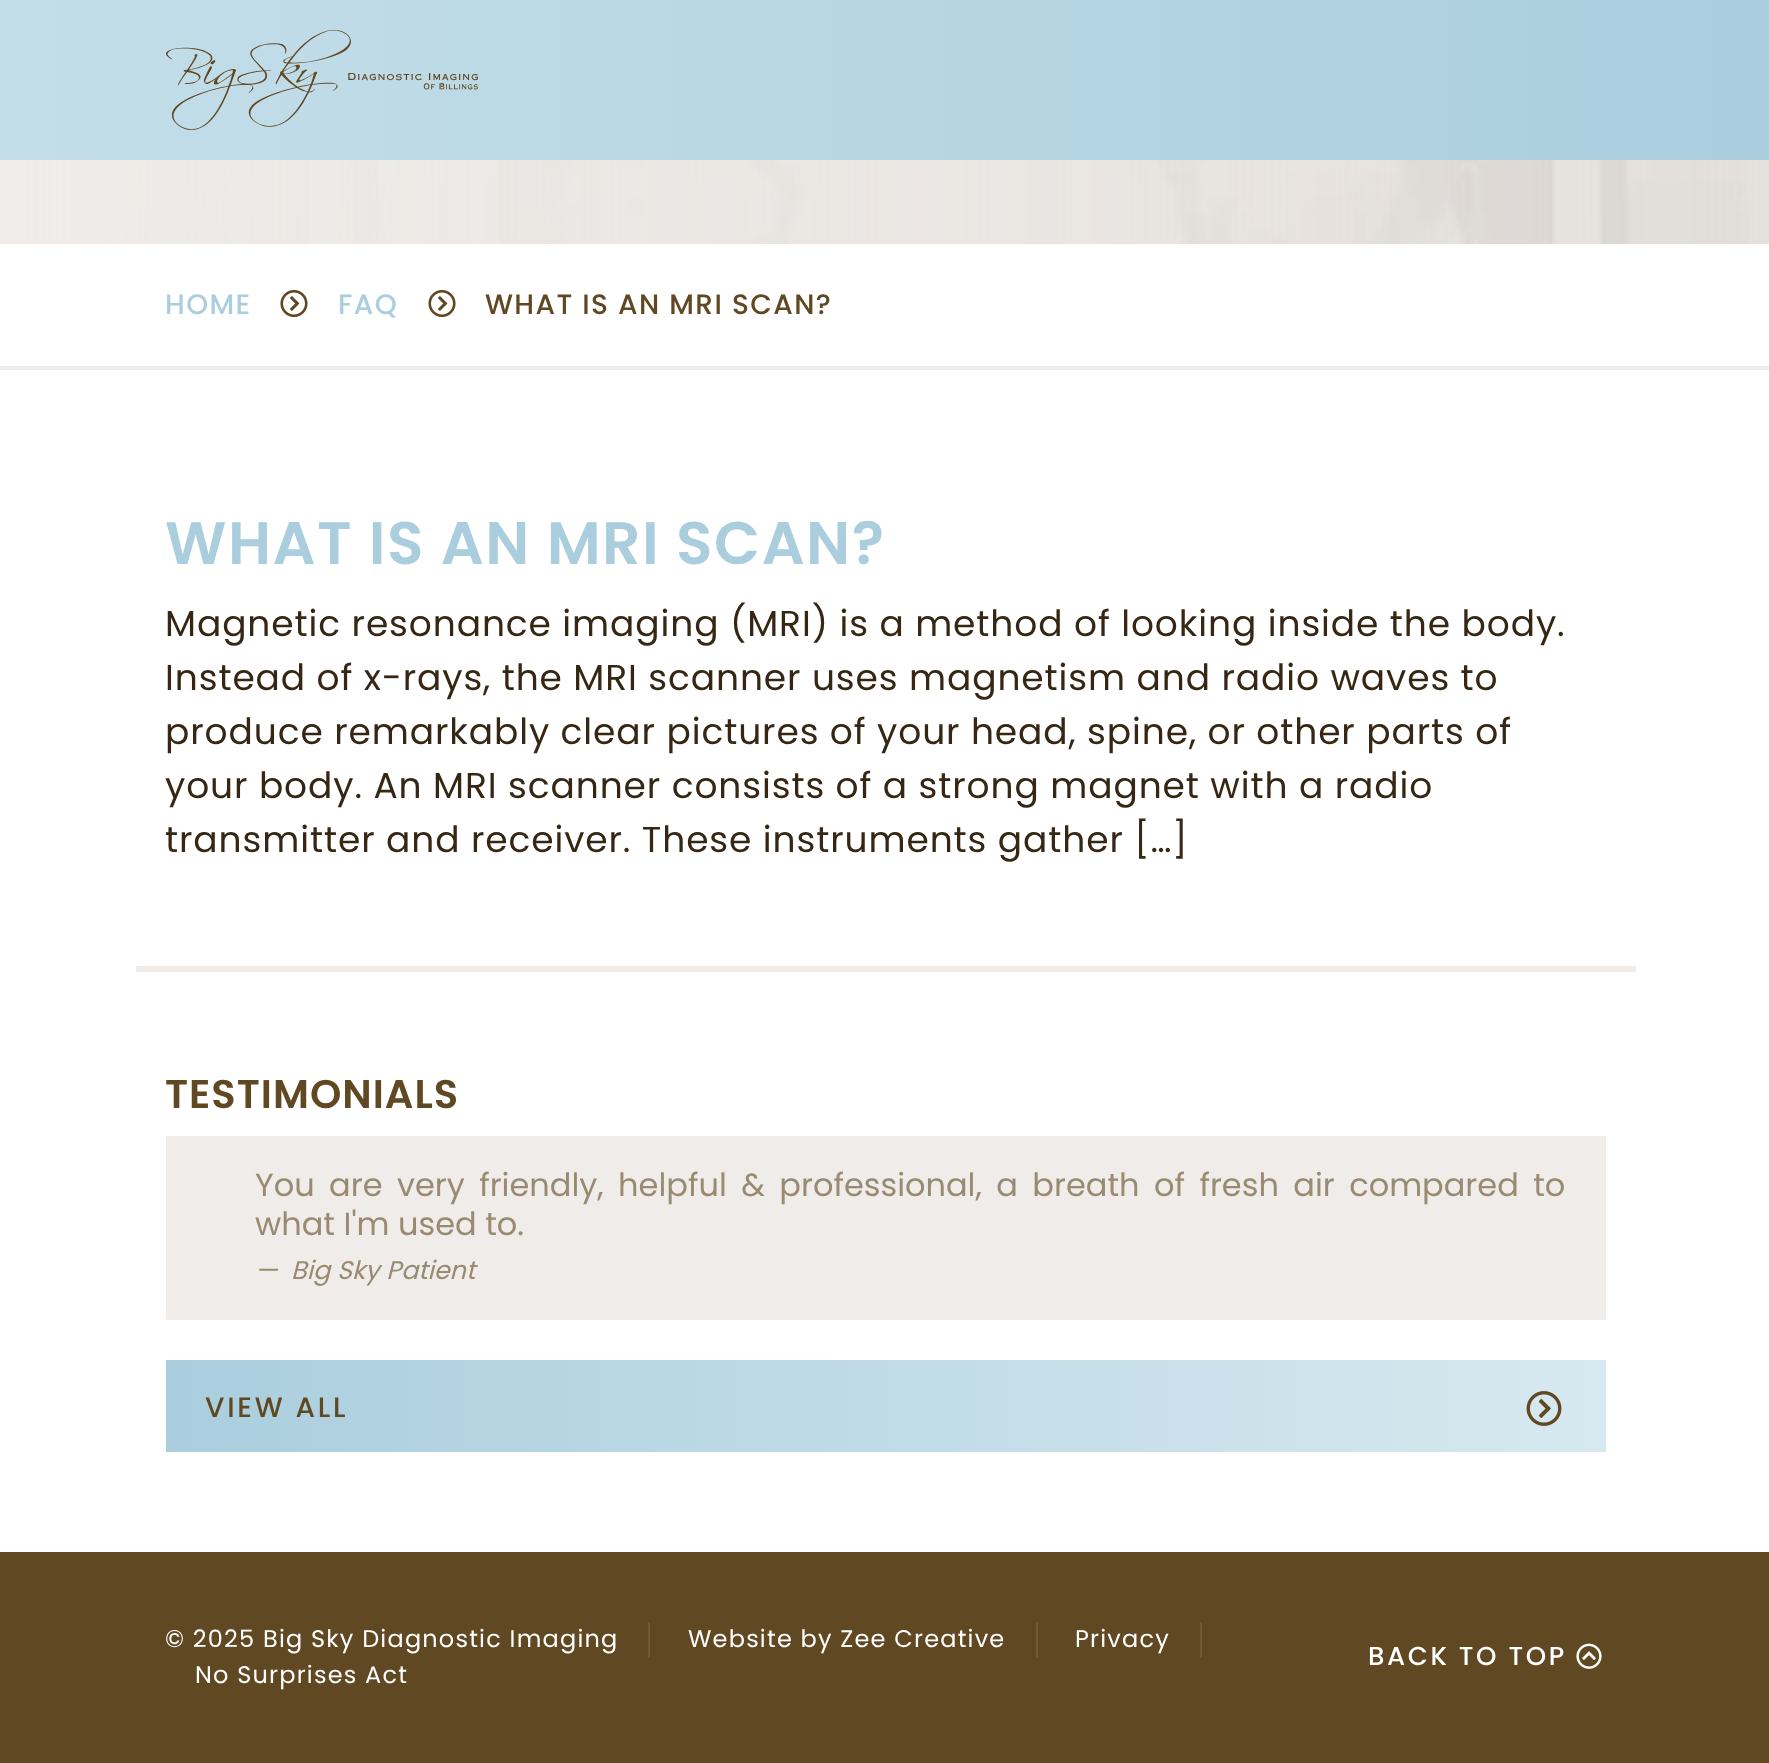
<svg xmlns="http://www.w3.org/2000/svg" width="1769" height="1763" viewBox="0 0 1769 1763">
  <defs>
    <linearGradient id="g1" gradientUnits="userSpaceOnUse" x1="0" y1="80" x2="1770" y2="80"><stop offset="0" stop-color="rgb(195,222,233)"/><stop offset="1" stop-color="rgb(170,206,222)"/></linearGradient>
    <linearGradient id="g2" gradientUnits="userSpaceOnUse" x1="166" y1="1406" x2="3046" y2="1406"><stop offset="0" stop-color="rgb(170,206,222)"/><stop offset="0.51" stop-color="rgb(216,233,240)"/><stop offset="1" stop-color="rgb(170,206,222)"/></linearGradient>
  </defs>
  <rect width="100%" height="100%" fill="rgb(255,255,255)"/>
  <rect x="0" y="0" width="1769" height="160" fill="url(#g1)"/>
  <image x="166" y="30" width="312" height="100" href="pic1.png"/>
  <image x="0" y="160" width="1769" height="84" href="pic2.png"/>
  <rect x="0" y="366" width="1769" height="4" fill="rgb(239,236,233)"/>
  <text x="165" y="314" font-family="Poppins" font-size="28" font-weight="500" letter-spacing="1.4" fill="rgb(170,206,222)">HOME</text>
  <image x="280" y="289" width="28" height="29" href="pic3.png"/>
  <text x="338" y="314" font-family="Poppins" font-size="28" font-weight="500" letter-spacing="1.4" fill="rgb(170,206,222)">FAQ</text>
  <image x="428" y="289" width="28" height="29" href="pic3.png"/>
  <text x="485" y="314" font-family="Poppins" font-size="28" font-weight="500" letter-spacing="1.4" fill="rgb(96,72,35)">WHAT IS AN MRI SCAN?</text>
  <text x="165" y="564" font-family="Poppins" font-size="60" font-weight="600" letter-spacing="1.5" fill="rgb(170,206,222)">WHAT IS AN MRI SCAN?</text>
  <g font-family="Poppins" font-size="36" letter-spacing="0.9" fill="rgb(53,39,19)">
    <text>
      <tspan x="165" y="636">Magnetic resonance imaging (MRI) is a method of looking inside the body.</tspan>
      <tspan x="165" y="690">Instead of x-rays, the MRI scanner uses magnetism and radio waves to</tspan>
      <tspan x="165" y="744">produce remarkably clear pictures of your head, spine, or other parts of</tspan>
      <tspan x="165" y="798">your body. An MRI scanner consists of a strong magnet with a radio</tspan>
      <tspan x="165" y="852">transmitter and receiver. These instruments gather […]</tspan>
    </text>
  </g>
  <rect x="136" y="966" width="1500" height="6" fill="rgb(239,236,233)"/>
  <text x="165" y="1108" font-family="Poppins" font-size="40" font-weight="600" letter-spacing="1" fill="rgb(96,72,35)">TESTIMONIALS</text>
  <rect x="166" y="1136" width="1440" height="184" fill="rgb(239,236,233)"/>
  <g font-family="Poppins" font-size="32" fill="rgb(153,138,114)">
    <text>
      <tspan x="255" y="1196" word-spacing="5.9">You are very friendly, helpful &amp; professional, a breath of fresh air compared to</tspan>
      <tspan x="255" y="1235">what I'm used to.</tspan>
    </text>
  </g>
  <g font-family="Poppins" font-size="25.5" font-style="italic" fill="rgb(153,138,114)">
    <text x="255" y="1279">—</text>
    <text x="291" y="1279">Big Sky Patient</text>
  </g>
  <rect x="166" y="1360" width="1440" height="92" fill="url(#g2)"/>
  <text x="205" y="1417" font-family="Poppins" font-size="28" font-weight="500" letter-spacing="2.75" fill="rgb(96,72,35)">VIEW ALL</text>
  <image x="1526" y="1391" width="36" height="35" href="pic4.png"/>
  <rect x="0" y="1552" width="1769" height="211" fill="rgb(96,72,35)"/>
  <rect x="648" y="1622" width="2" height="36" fill="rgb(112,90,57)"/>
  <text x="165" y="1647" font-family="Poppins" font-size="24" letter-spacing="1.2" fill="rgb(255,255,255)">© 2025 Big Sky Diagnostic Imaging</text>
  <rect x="1036" y="1622" width="2" height="36" fill="rgb(112,90,57)"/>
  <text x="688" y="1647" font-family="Poppins" font-size="24" letter-spacing="1.2" fill="rgb(255,255,255)">Website by Zee Creative</text>
  <rect x="1200" y="1622" width="2" height="36" fill="rgb(112,90,57)"/>
  <g font-family="Poppins" font-size="24" letter-spacing="1.2" fill="rgb(255,255,255)">
    <text x="1075" y="1647">Privacy</text>
    <text x="195" y="1683">No Surprises Act</text>
  </g>
  <text x="1368" y="1665" font-family="Poppins" font-size="26" font-weight="500" letter-spacing="2.6" fill="rgb(255,255,255)">BACK TO TOP</text>
  <image x="1576" y="1643" width="26" height="26" href="pic5.png"/>
</svg>
